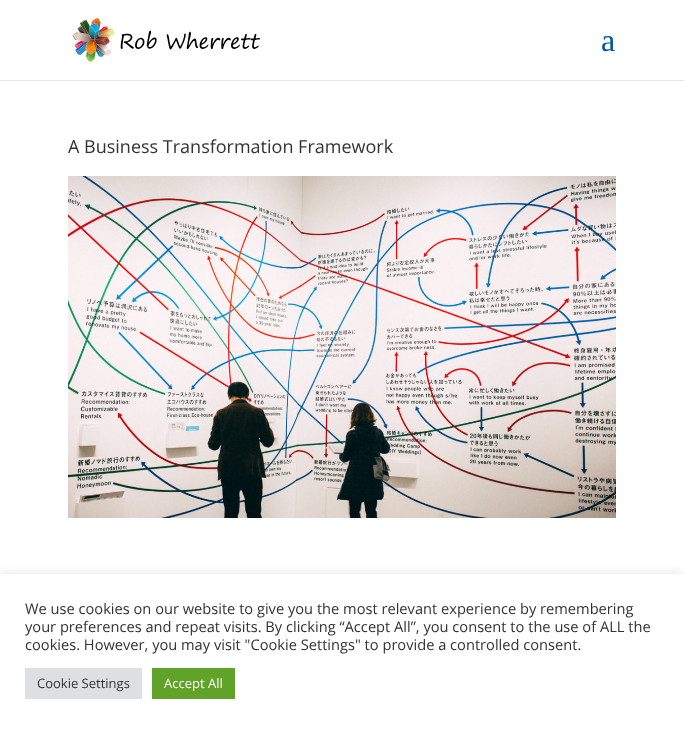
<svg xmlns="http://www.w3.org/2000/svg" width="684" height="729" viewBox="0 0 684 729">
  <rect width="100%" height="100%" fill="rgb(255,255,255)"/>
  <rect x="0" y="80" width="684" height="1" fill="rgb(230,230,230)"/>
  <image x="72" y="18" width="188" height="44" href="pic1.png"/>
  <text x="601" y="51" font-family="Liberation Serif" font-size="32" fill="rgb(0,84,166)">a</text>
  <text x="68" y="153" font-family="Open Sans" font-size="18" fill="rgb(51,51,51)">A Business Transformation Framework</text>
  <image x="68" y="176" width="548" height="342" href="pic2.png"/>
  <rect x="0" y="573" width="684" height="155" fill="rgba(172,171,171,0.3)" filter="blur(5px)"/>
  <rect x="0" y="574" width="684" height="155" fill="rgb(255,255,255)"/>
  <g font-family="Open Sans" font-size="14.65" fill="rgb(51,51,51)">
    <text>
      <tspan x="25" y="614">We use cookies on our website to give you the most relevant experience by remembering</tspan>
      <tspan x="25" y="632">your preferences and repeat visits. By clicking “Accept All”, you consent to the use of ALL the</tspan>
      <tspan x="25" y="650">cookies. However, you may visit "Cookie Settings" to provide a controlled consent.</tspan>
    </text>
  </g>
  <rect x="25" y="668" width="117" height="31" fill="rgb(222,223,224)"/>
  <text x="37" y="688" font-family="Open Sans" font-size="13" fill="rgb(51,51,51)">Cookie Settings</text>
  <rect x="152" y="668" width="83" height="31" fill="rgb(97,162,41)"/>
  <text x="164" y="688" font-family="Open Sans" font-size="13" fill="rgb(255,255,255)">Accept All</text>
</svg>
